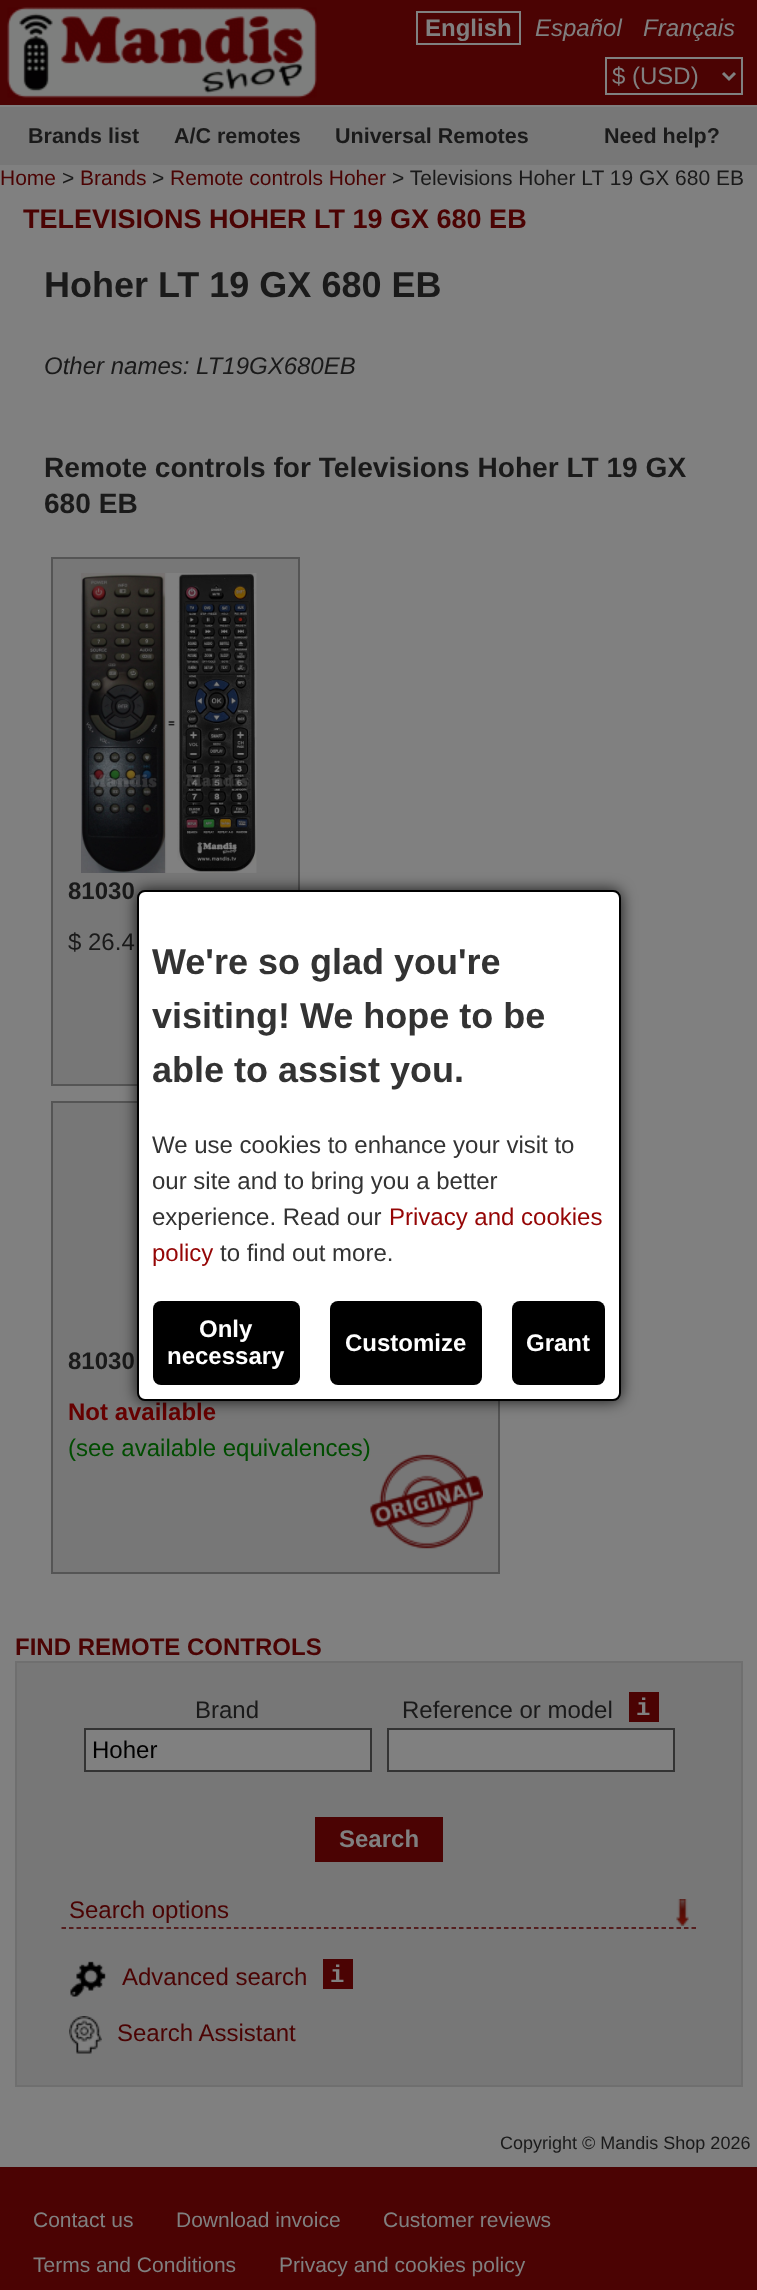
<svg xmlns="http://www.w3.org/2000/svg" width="757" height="2290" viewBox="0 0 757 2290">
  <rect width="100%" height="100%" fill="rgb(128,128,128)"/>
  <rect x="0" y="0" width="757" height="105" fill="rgb(75,3,3)"/>
  <image x="7" y="7" width="310" height="91" href="pic1.png"/>
  <rect x="417" y="12" width="103" height="32" fill="none" stroke="rgb(128,128,128)" stroke-width="2"/>
  <text x="425" y="36" font-family="Liberation Sans" font-size="24" font-weight="bold" fill="rgb(128,128,128)">English</text>
  <g font-family="Liberation Sans" font-size="24" font-style="italic" fill="rgb(128,128,128)">
    <text x="535" y="36">Español</text>
    <text x="643" y="36">Français</text>
  </g>
  <rect x="606" y="58" width="136" height="36" fill="none" stroke="rgb(128,128,128)" stroke-width="2"/>
  <path d="M723 73L729 79L735 73" fill="none" stroke="rgb(128,128,128)" stroke-width="3"/>
  <text x="612" y="84" font-family="Liberation Sans" font-size="24" fill="rgb(128,128,128)">$ (USD)</text>
  <rect x="0" y="107" width="757" height="58" fill="rgb(119,119,119)"/>
  <g font-family="Liberation Sans" font-size="21.5" font-weight="bold" fill="rgb(26,26,26)">
    <text x="28" y="143">Brands list</text>
    <text x="174" y="143">A/C remotes</text>
    <text x="335" y="143">Universal Remotes</text>
    <text x="604" y="143">Need help?</text>
  </g>
  <text x="0" y="185" font-family="Liberation Sans" font-size="21" fill="rgb(75,3,3)">Home</text>
  <text x="62" y="185" font-family="Liberation Sans" font-size="21" fill="rgb(26,26,26)">&gt;</text>
  <text x="80" y="185" font-family="Liberation Sans" font-size="21" fill="rgb(75,3,3)">Brands</text>
  <text x="152" y="185" font-family="Liberation Sans" font-size="21" fill="rgb(26,26,26)">&gt;</text>
  <text x="170" y="185" font-family="Liberation Sans" font-size="21" fill="rgb(75,3,3)">Remote controls Hoher</text>
  <text x="392" y="185" font-family="Liberation Sans" font-size="21" fill="rgb(26,26,26)">&gt; Televisions Hoher LT 19 GX 680 EB</text>
  <text x="23" y="228" font-family="Liberation Sans" font-size="27" font-weight="bold" fill="rgb(75,3,3)">TELEVISIONS HOHER LT 19 GX 680 EB</text>
  <text x="44" y="297" font-family="Liberation Sans" font-size="36" font-weight="bold" fill="rgb(26,26,26)">Hoher LT 19 GX 680 EB</text>
  <text x="44" y="374" font-family="Liberation Sans" font-size="24" font-style="italic" fill="rgb(26,26,26)">Other names: LT19GX680EB</text>
  <g font-family="Liberation Sans" font-size="28.1" font-weight="bold" fill="rgb(26,26,26)">
    <text>
      <tspan x="44" y="477">Remote controls for Televisions Hoher LT 19 GX</tspan>
      <tspan x="44" y="513">680 EB</tspan>
    </text>
  </g>
  <rect x="52" y="558" width="247" height="527" fill="rgb(119,119,119)" stroke="rgb(85,85,85)" stroke-width="2"/>
  <image x="81" y="573" width="176" height="300" href="pic2.png"/>
  <text x="68" y="899" font-family="Liberation Sans" font-size="24" font-weight="bold" fill="rgb(26,26,26)">81030</text>
  <text x="68" y="950" font-family="Liberation Sans" font-size="24" fill="rgb(26,26,26)">$ 26.4</text>
  <rect x="52" y="1102" width="447" height="471" fill="rgb(119,119,119)" stroke="rgb(85,85,85)" stroke-width="2"/>
  <text x="68" y="1369" font-family="Liberation Sans" font-size="24" font-weight="bold" fill="rgb(26,26,26)">81030</text>
  <text x="68" y="1420" font-family="Liberation Sans" font-size="24" font-weight="bold" fill="rgb(102,0,0)">Not available</text>
  <text x="68" y="1456" font-family="Liberation Sans" font-size="24" fill="rgb(0,77,0)">(see available equivalences)</text>
  <image x="370" y="1454" width="113" height="95" href="pic3.png"/>
  <text x="15" y="1655" font-family="Liberation Sans" font-size="24" font-weight="bold" fill="rgb(75,3,3)">FIND REMOTE CONTROLS</text>
  <rect x="16" y="1662" width="726" height="424" fill="rgb(119,119,119)" stroke="rgb(111,111,111)" stroke-width="2"/>
  <text x="195" y="1718" font-family="Liberation Sans" font-size="24" fill="rgb(26,26,26)">Brand</text>
  <rect x="85" y="1729" width="286" height="42" fill="rgb(128,128,128)" stroke="rgb(51,51,51)" stroke-width="2"/>
  <text x="92" y="1758" font-family="Liberation Sans" font-size="24" fill="rgb(0,0,0)">Hoher</text>
  <text x="402" y="1718" font-family="Liberation Sans" font-size="24" fill="rgb(26,26,26)">Reference or model</text>
  <rect x="629" y="1692" width="30" height="30" fill="rgb(75,3,3)"/>
  <text x="636" y="1715" font-family="Liberation Mono" font-size="24" font-weight="bold" fill="rgb(128,128,128)">i</text>
  <rect x="388" y="1729" width="286" height="42" fill="rgb(128,128,128)" stroke="rgb(51,51,51)" stroke-width="2"/>
  <rect x="315" y="1817" width="128" height="45" fill="rgb(75,3,3)"/>
  <text x="339" y="1847" font-family="Liberation Sans" font-size="24" font-weight="bold" fill="rgb(128,128,128)">Search</text>
  <path d="M61.5 1928H696" fill="none" stroke="rgb(75,3,3)" stroke-width="1.5" stroke-dasharray="4.5 3"/>
  <text x="69" y="1918" font-family="Liberation Sans" font-size="24" fill="rgb(75,3,3)">Search options</text>
  <image x="676" y="1899" width="13" height="27" href="pic4.png"/>
  <image x="70" y="1961" width="36" height="36" href="pic5.png"/>
  <text x="122" y="1985" font-family="Liberation Sans" font-size="24" fill="rgb(75,3,3)">Advanced search</text>
  <rect x="323" y="1959" width="30" height="30" fill="rgb(75,3,3)"/>
  <text x="330" y="1982" font-family="Liberation Mono" font-size="24" font-weight="bold" fill="rgb(128,128,128)">i</text>
  <image x="69" y="2016" width="33" height="38" href="pic6.png"/>
  <text x="117" y="2041" font-family="Liberation Sans" font-size="24" fill="rgb(75,3,3)">Search Assistant</text>
  <text x="500" y="2149" font-family="Liberation Sans" font-size="18" fill="rgb(26,26,26)">Copyright © Mandis Shop 2026</text>
  <rect x="0" y="2167" width="757" height="123" fill="rgb(75,3,3)"/>
  <g font-family="Liberation Sans" font-size="21" fill="rgb(128,128,128)">
    <text x="33" y="2227">Contact us</text>
    <text x="176" y="2227">Download invoice</text>
    <text x="383" y="2227">Customer reviews</text>
    <text x="33" y="2272">Terms and Conditions</text>
    <text x="279" y="2272">Privacy and cookies policy</text>
  </g>
  <rect x="137" y="890" width="484" height="511" rx="8" fill="rgba(0,0,0,0.8)" filter="blur(7.5px)"/>
  <rect x="138" y="891" width="482" height="509" rx="7" fill="rgb(255,255,255)" stroke="rgb(0,0,0)" stroke-width="2"/>
  <g font-family="Liberation Sans" font-size="36" font-weight="bold" fill="rgb(51,51,51)">
    <text>
      <tspan x="152" y="974">We're so glad you're</tspan>
      <tspan x="152" y="1028">visiting! We hope to be</tspan>
      <tspan x="152" y="1082">able to assist you.</tspan>
    </text>
  </g>
  <g font-family="Liberation Sans" font-size="24" fill="rgb(51,51,51)">
    <text>
      <tspan x="152" y="1153">We use cookies to enhance your visit to</tspan>
      <tspan x="152" y="1189">our site and to bring you a better</tspan>
      <tspan x="152" y="1225">experience. Read our</tspan>
    </text>
  </g>
  <g font-family="Liberation Sans" font-size="24" fill="rgb(149,5,5)">
    <text x="389" y="1225">Privacy and cookies</text>
    <text x="152" y="1261">policy</text>
  </g>
  <text x="220" y="1261" font-family="Liberation Sans" font-size="24" fill="rgb(51,51,51)">to find out more.</text>
  <rect x="153" y="1301" width="147" height="84" rx="8" fill="rgb(0,0,0)"/>
  <g font-family="Liberation Sans" font-size="24" font-weight="bold" fill="rgb(255,255,255)">
    <text x="199" y="1337">Only</text>
    <text x="167" y="1364">necessary</text>
  </g>
  <rect x="330" y="1301" width="152" height="84" rx="8" fill="rgb(0,0,0)"/>
  <text x="345" y="1351" font-family="Liberation Sans" font-size="24" font-weight="bold" fill="rgb(255,255,255)">Customize</text>
  <rect x="512" y="1301" width="93" height="84" rx="8" fill="rgb(0,0,0)"/>
  <text x="526" y="1351" font-family="Liberation Sans" font-size="24" font-weight="bold" fill="rgb(255,255,255)">Grant</text>
</svg>
